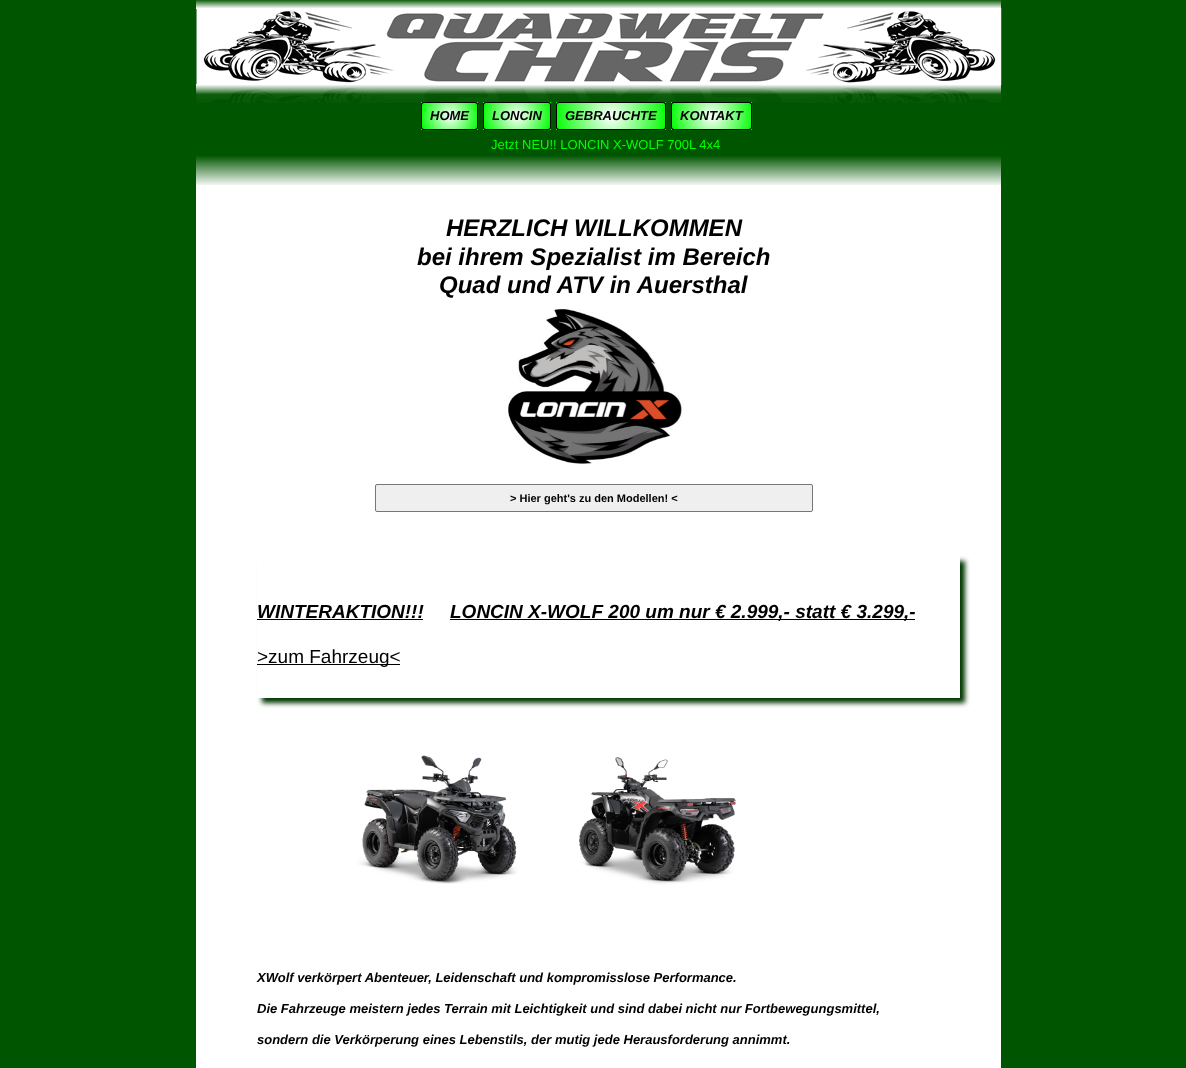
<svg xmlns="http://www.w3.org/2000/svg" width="1186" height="1068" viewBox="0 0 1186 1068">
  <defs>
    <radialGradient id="g1" gradientUnits="userSpaceOnUse" cx="395" cy="90" r="30"><stop offset="0" stop-color="rgb(255,255,255)"/><stop offset="1" stop-color="rgb(3,253,5)"/></radialGradient>
    <radialGradient id="g2" gradientUnits="userSpaceOnUse" cx="505" cy="90" r="30"><stop offset="0" stop-color="rgb(255,255,255)"/><stop offset="1" stop-color="rgb(3,253,5)"/></radialGradient>
    <radialGradient id="g3" gradientUnits="userSpaceOnUse" cx="450" cy="116" r="30"><stop offset="0" stop-color="rgb(255,255,255)"/><stop offset="1" stop-color="rgb(3,253,5)"/></radialGradient>
    <radialGradient id="g4" gradientUnits="userSpaceOnUse" cx="395" cy="142" r="30"><stop offset="0" stop-color="rgb(255,255,255)"/><stop offset="1" stop-color="rgb(3,253,5)"/></radialGradient>
    <radialGradient id="g5" gradientUnits="userSpaceOnUse" cx="505" cy="142" r="30"><stop offset="0" stop-color="rgb(255,255,255)"/><stop offset="1" stop-color="rgb(3,253,5)"/></radialGradient>
    <radialGradient id="g6" gradientUnits="userSpaceOnUse" cx="451" cy="90" r="35"><stop offset="0" stop-color="rgb(255,255,255)"/><stop offset="1" stop-color="rgb(3,253,5)"/></radialGradient>
    <radialGradient id="g7" gradientUnits="userSpaceOnUse" cx="583" cy="90" r="35"><stop offset="0" stop-color="rgb(255,255,255)"/><stop offset="1" stop-color="rgb(3,253,5)"/></radialGradient>
    <radialGradient id="g8" gradientUnits="userSpaceOnUse" cx="517" cy="116" r="35"><stop offset="0" stop-color="rgb(255,255,255)"/><stop offset="1" stop-color="rgb(3,253,5)"/></radialGradient>
    <radialGradient id="g9" gradientUnits="userSpaceOnUse" cx="451" cy="142" r="35"><stop offset="0" stop-color="rgb(255,255,255)"/><stop offset="1" stop-color="rgb(3,253,5)"/></radialGradient>
    <radialGradient id="g10" gradientUnits="userSpaceOnUse" cx="583" cy="142" r="35"><stop offset="0" stop-color="rgb(255,255,255)"/><stop offset="1" stop-color="rgb(3,253,5)"/></radialGradient>
    <radialGradient id="g11" gradientUnits="userSpaceOnUse" cx="503" cy="90" r="56"><stop offset="0" stop-color="rgb(255,255,255)"/><stop offset="1" stop-color="rgb(3,253,5)"/></radialGradient>
    <radialGradient id="g12" gradientUnits="userSpaceOnUse" cx="719" cy="90" r="56"><stop offset="0" stop-color="rgb(255,255,255)"/><stop offset="1" stop-color="rgb(3,253,5)"/></radialGradient>
    <radialGradient id="g13" gradientUnits="userSpaceOnUse" cx="611" cy="116" r="56"><stop offset="0" stop-color="rgb(255,255,255)"/><stop offset="1" stop-color="rgb(3,253,5)"/></radialGradient>
    <radialGradient id="g14" gradientUnits="userSpaceOnUse" cx="503" cy="142" r="56"><stop offset="0" stop-color="rgb(255,255,255)"/><stop offset="1" stop-color="rgb(3,253,5)"/></radialGradient>
    <radialGradient id="g15" gradientUnits="userSpaceOnUse" cx="719" cy="142" r="56"><stop offset="0" stop-color="rgb(255,255,255)"/><stop offset="1" stop-color="rgb(3,253,5)"/></radialGradient>
    <radialGradient id="g16" gradientUnits="userSpaceOnUse" cx="633" cy="90" r="42"><stop offset="0" stop-color="rgb(255,255,255)"/><stop offset="1" stop-color="rgb(3,253,5)"/></radialGradient>
    <radialGradient id="g17" gradientUnits="userSpaceOnUse" cx="791" cy="90" r="42"><stop offset="0" stop-color="rgb(255,255,255)"/><stop offset="1" stop-color="rgb(3,253,5)"/></radialGradient>
    <radialGradient id="g18" gradientUnits="userSpaceOnUse" cx="712" cy="116" r="42"><stop offset="0" stop-color="rgb(255,255,255)"/><stop offset="1" stop-color="rgb(3,253,5)"/></radialGradient>
    <radialGradient id="g19" gradientUnits="userSpaceOnUse" cx="633" cy="142" r="42"><stop offset="0" stop-color="rgb(255,255,255)"/><stop offset="1" stop-color="rgb(3,253,5)"/></radialGradient>
    <radialGradient id="g20" gradientUnits="userSpaceOnUse" cx="791" cy="142" r="42"><stop offset="0" stop-color="rgb(255,255,255)"/><stop offset="1" stop-color="rgb(3,253,5)"/></radialGradient>
    <clipPath id="clip1"><path d="M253 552H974V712H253ZM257 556H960V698H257Z" clip-rule="evenodd"/></clipPath>
  </defs>
  <rect width="100%" height="100%" fill="rgb(0,85,0)"/>
  <image x="196" y="0" width="805" height="9" href="pic1.png"/>
  <image x="196" y="84" width="805" height="10" href="pic3.png"/>
  <rect x="421" y="102" width="1" height="1" fill="url(#g1)"/>
  <rect x="477" y="102" width="1" height="1" fill="url(#g2)"/>
  <rect x="422" y="103" width="55" height="26" fill="url(#g3)"/>
  <rect x="421" y="129" width="1" height="1" fill="url(#g4)"/>
  <rect x="477" y="129" width="1" height="1" fill="url(#g5)"/>
  <rect x="421.5" y="102.5" width="56" height="27" rx="2.5" fill="none" stroke="rgb(0,0,0)"/>
  <rect x="483" y="102" width="1" height="1" fill="url(#g6)"/>
  <rect x="550" y="102" width="1" height="1" fill="url(#g7)"/>
  <rect x="484" y="103" width="66" height="26" fill="url(#g8)"/>
  <rect x="483" y="129" width="1" height="1" fill="url(#g9)"/>
  <rect x="550" y="129" width="1" height="1" fill="url(#g10)"/>
  <rect x="483.5" y="102.5" width="67" height="27" rx="2.5" fill="none" stroke="rgb(0,0,0)"/>
  <rect x="556" y="102" width="1" height="1" fill="url(#g11)"/>
  <rect x="665" y="102" width="1" height="1" fill="url(#g12)"/>
  <rect x="557" y="103" width="108" height="26" fill="url(#g13)"/>
  <rect x="556" y="129" width="1" height="1" fill="url(#g14)"/>
  <rect x="665" y="129" width="1" height="1" fill="url(#g15)"/>
  <rect x="556.5" y="102.5" width="109" height="27" rx="2.5" fill="none" stroke="rgb(0,0,0)"/>
  <rect x="671" y="102" width="1" height="1" fill="url(#g16)"/>
  <rect x="751" y="102" width="1" height="1" fill="url(#g17)"/>
  <rect x="672" y="103" width="79" height="26" fill="url(#g18)"/>
  <rect x="671" y="129" width="1" height="1" fill="url(#g19)"/>
  <rect x="751" y="129" width="1" height="1" fill="url(#g20)"/>
  <rect x="671.5" y="102.5" width="80" height="27" rx="2.5" fill="none" stroke="rgb(0,0,0)"/>
  <image x="196" y="8" width="806" height="95" href="pic2.png"/>
  <g font-family="Liberation Sans" font-size="13" font-weight="bold" font-style="italic" fill="rgb(0,0,0)">
    <text x="430" y="120">HOME</text>
    <text x="492" y="120">LONCIN</text>
    <text x="565" y="120">GEBRAUCHTE</text>
    <text x="680" y="120">KONTAKT</text>
  </g>
  <text x="491" y="149" font-family="Liberation Sans" font-size="13" fill="rgb(0,255,0)">Jetzt NEU!! LONCIN X-WOLF 700L 4x4</text>
  <image x="196" y="156" width="805" height="29" href="pic4.png"/>
  <rect x="196" y="185" width="805" height="883" fill="rgb(255,255,255)"/>
  <g font-family="Liberation Sans" font-size="24" font-weight="bold" font-style="italic" fill="rgb(0,0,0)">
    <text x="446" y="236">HERZLICH WILLKOMMEN</text>
    <text x="417" y="265">bei ihrem Spezialist im Bereich</text>
    <text x="439" y="293">Quad und ATV in Auersthal</text>
  </g>
  <image x="505" y="309" width="179" height="155" href="pic5.png"/>
  <rect x="375.5" y="484.5" width="437" height="27" rx="1.5" fill="rgb(239,239,239)" stroke="rgb(118,118,118)"/>
  <text x="510" y="502" font-family="Liberation Sans" font-size="11" font-weight="bold" fill="rgb(0,0,0)">&gt; Hier geht's zu den Modellen! &lt;</text>
  <g clip-path="url(#clip1)">
    <rect x="262" y="561" width="703" height="142" fill="rgb(0,55,0)" filter="blur(2.5px)"/>
  </g>
  <text x="257" y="618" font-family="Liberation Sans" font-size="19" font-weight="bold" font-style="italic" fill="rgb(0,0,0)">WINTERAKTION!!!</text>
  <rect x="257" y="619" width="166" height="1" fill="rgb(0,0,0)"/>
  <rect x="450" y="619" width="465" height="1" fill="rgb(0,0,0)"/>
  <text x="450" y="618" font-family="Liberation Sans" font-size="19" font-weight="bold" font-style="italic" fill="rgb(0,0,0)">LONCIN X-WOLF 200 um nur € 2.999,- statt € 3.299,-</text>
  <rect x="257" y="664" width="143" height="1" fill="rgb(0,0,0)"/>
  <text x="257" y="663" font-family="Liberation Sans" font-size="19" fill="rgb(0,0,0)">&gt;zum Fahrzeug&lt;</text>
  <image x="357" y="755" width="161" height="129" href="pic6.png"/>
  <image x="579" y="757" width="157" height="128" href="pic7.png"/>
  <g font-family="Liberation Sans" font-size="13" font-weight="bold" font-style="italic" fill="rgb(0,0,0)">
    <text x="257" y="982">XWolf verkörpert Abenteuer, Leidenschaft und kompromisslose Performance.</text>
    <text x="257" y="1013">Die Fahrzeuge meistern jedes Terrain mit Leichtigkeit und sind dabei nicht nur Fortbewegungsmittel,</text>
    <text x="257" y="1044">sondern die Verkörperung eines Lebenstils, der mutig jede Herausforderung annimmt.</text>
  </g>
</svg>
